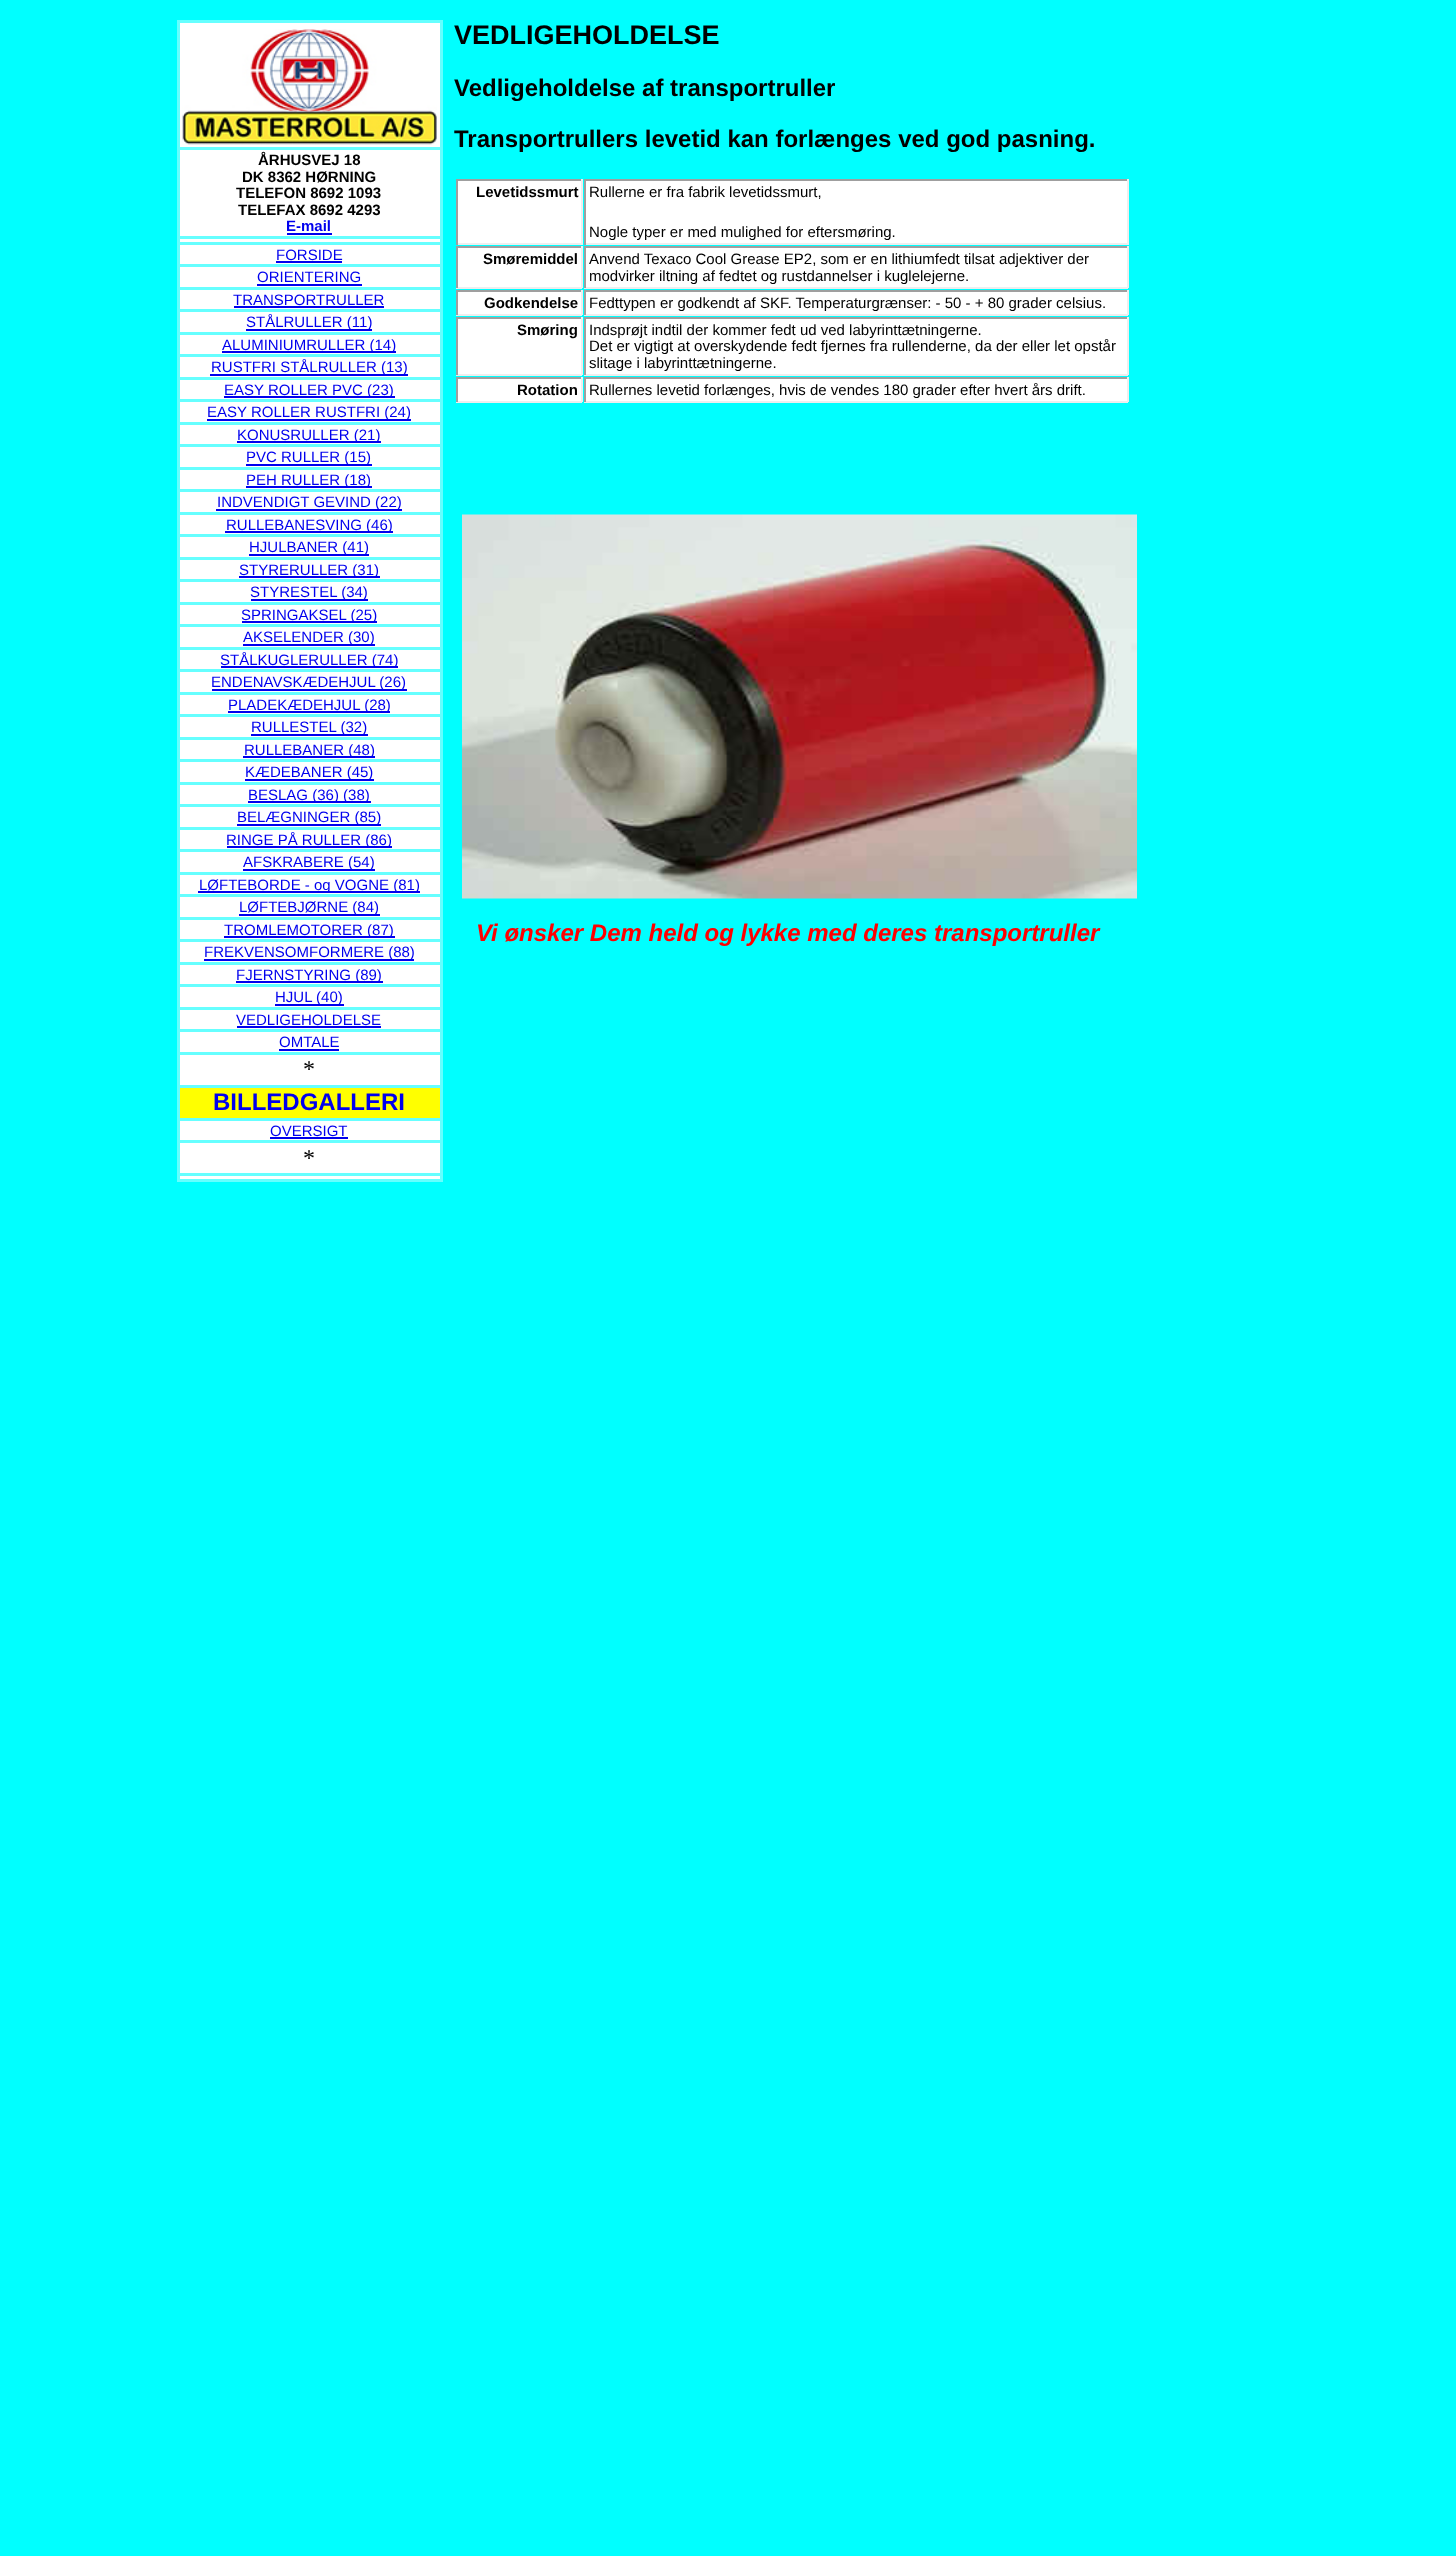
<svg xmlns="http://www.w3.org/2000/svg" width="1456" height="2556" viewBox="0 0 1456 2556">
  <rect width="100%" height="100%" fill="rgb(0,255,255)"/>
  <text x="454" y="44" font-family="Liberation Sans" font-size="27" font-weight="bold" fill="rgb(0,0,0)">VEDLIGEHOLDELSE</text>
  <g font-family="Liberation Sans" font-size="24" font-weight="bold" fill="rgb(0,0,0)">
    <text x="454" y="96">Vedligeholdelse af transportruller</text>
    <text x="454" y="147">Transportrullers levetid kan forlænges ved god pasning.</text>
  </g>
  <rect x="177" y="20" width="266" height="1162" fill="rgb(102,255,255)"/>
  <rect x="180" y="23" width="260" height="124" fill="rgb(255,255,255)"/>
  <image x="182" y="29" width="255" height="116" href="pic1.png"/>
  <rect x="180" y="150" width="260" height="86" fill="rgb(255,255,255)"/>
  <g font-family="Liberation Sans" font-size="15" font-weight="bold" fill="rgb(0,0,0)">
    <text x="258" y="165">ÅRHUSVEJ 18</text>
    <text x="242" y="182">DK 8362 HØRNING</text>
    <text x="236" y="198">TELEFON 8692 1093</text>
    <text x="238" y="215">TELEFAX 8692 4293</text>
  </g>
  <text x="286" y="231" font-family="Liberation Sans" font-size="15" font-weight="bold" fill="rgb(0,0,238)">E-mail</text>
  <rect x="287" y="233" width="45" height="2" fill="rgb(0,0,238)"/>
  <rect x="180" y="239" width="260" height="3" fill="rgb(255,255,255)"/>
  <rect x="180" y="245" width="260" height="19" fill="rgb(255,255,255)"/>
  <text x="276" y="260" font-family="Liberation Sans" font-size="15" fill="rgb(0,0,238)">FORSIDE</text>
  <rect x="276" y="261" width="66" height="2" fill="rgb(0,0,238)"/>
  <rect x="180" y="267" width="260" height="20" fill="rgb(255,255,255)"/>
  <text x="257" y="282" font-family="Liberation Sans" font-size="15" fill="rgb(0,0,238)">ORIENTERING</text>
  <rect x="257" y="284" width="105" height="2" fill="rgb(0,0,238)"/>
  <rect x="180" y="290" width="260" height="19" fill="rgb(255,255,255)"/>
  <text x="233" y="305" font-family="Liberation Sans" font-size="15" fill="rgb(0,0,238)">TRANSPORTRULLER</text>
  <rect x="234" y="306" width="150" height="2" fill="rgb(0,0,238)"/>
  <rect x="180" y="312" width="260" height="20" fill="rgb(255,255,255)"/>
  <rect x="246" y="329" width="126" height="2" fill="rgb(0,0,238)"/>
  <text x="246" y="327" font-family="Liberation Sans" font-size="15" fill="rgb(0,0,238)">STÅLRULLER (11)</text>
  <rect x="180" y="335" width="260" height="19" fill="rgb(255,255,255)"/>
  <rect x="222" y="351" width="174" height="2" fill="rgb(0,0,238)"/>
  <text x="222" y="350" font-family="Liberation Sans" font-size="15" fill="rgb(0,0,238)">ALUMINIUMRULLER (14)</text>
  <rect x="180" y="357" width="260" height="20" fill="rgb(255,255,255)"/>
  <rect x="210" y="374" width="198" height="2" fill="rgb(0,0,238)"/>
  <text x="211" y="372" font-family="Liberation Sans" font-size="15" fill="rgb(0,0,238)">RUSTFRI STÅLRULLER (13)</text>
  <rect x="180" y="380" width="260" height="19" fill="rgb(255,255,255)"/>
  <rect x="224" y="396" width="171" height="2" fill="rgb(0,0,238)"/>
  <text x="224" y="395" font-family="Liberation Sans" font-size="15" fill="rgb(0,0,238)">EASY ROLLER PVC (23)</text>
  <rect x="180" y="402" width="260" height="20" fill="rgb(255,255,255)"/>
  <rect x="207" y="419" width="204" height="2" fill="rgb(0,0,238)"/>
  <text x="207" y="417" font-family="Liberation Sans" font-size="15" fill="rgb(0,0,238)">EASY ROLLER RUSTFRI (24)</text>
  <rect x="180" y="425" width="260" height="19" fill="rgb(255,255,255)"/>
  <rect x="237" y="441" width="144" height="2" fill="rgb(0,0,238)"/>
  <text x="237" y="440" font-family="Liberation Sans" font-size="15" fill="rgb(0,0,238)">KONUSRULLER (21)</text>
  <rect x="180" y="447" width="260" height="20" fill="rgb(255,255,255)"/>
  <rect x="246" y="464" width="126" height="2" fill="rgb(0,0,238)"/>
  <text x="246" y="462" font-family="Liberation Sans" font-size="15" fill="rgb(0,0,238)">PVC RULLER (15)</text>
  <rect x="180" y="470" width="260" height="19" fill="rgb(255,255,255)"/>
  <rect x="246" y="486" width="126" height="2" fill="rgb(0,0,238)"/>
  <text x="246" y="485" font-family="Liberation Sans" font-size="15" fill="rgb(0,0,238)">PEH RULLER (18)</text>
  <rect x="180" y="492" width="260" height="20" fill="rgb(255,255,255)"/>
  <rect x="216" y="509" width="186" height="2" fill="rgb(0,0,238)"/>
  <text x="217" y="507" font-family="Liberation Sans" font-size="15" fill="rgb(0,0,238)">INDVENDIGT GEVIND (22)</text>
  <rect x="180" y="515" width="260" height="19" fill="rgb(255,255,255)"/>
  <rect x="225" y="531" width="168" height="2" fill="rgb(0,0,238)"/>
  <text x="226" y="530" font-family="Liberation Sans" font-size="15" fill="rgb(0,0,238)">RULLEBANESVING (46)</text>
  <rect x="180" y="537" width="260" height="20" fill="rgb(255,255,255)"/>
  <rect x="249" y="554" width="120" height="2" fill="rgb(0,0,238)"/>
  <text x="249" y="552" font-family="Liberation Sans" font-size="15" fill="rgb(0,0,238)">HJULBANER (41)</text>
  <rect x="180" y="560" width="260" height="19" fill="rgb(255,255,255)"/>
  <rect x="239" y="576" width="141" height="2" fill="rgb(0,0,238)"/>
  <text x="239" y="575" font-family="Liberation Sans" font-size="15" fill="rgb(0,0,238)">STYRERULLER (31)</text>
  <rect x="180" y="582" width="260" height="20" fill="rgb(255,255,255)"/>
  <rect x="251" y="599" width="117" height="2" fill="rgb(0,0,238)"/>
  <text x="250" y="597" font-family="Liberation Sans" font-size="15" fill="rgb(0,0,238)">STYRESTEL (34)</text>
  <rect x="180" y="605" width="260" height="19" fill="rgb(255,255,255)"/>
  <rect x="242" y="621" width="135" height="2" fill="rgb(0,0,238)"/>
  <text x="241" y="620" font-family="Liberation Sans" font-size="15" fill="rgb(0,0,238)">SPRINGAKSEL (25)</text>
  <rect x="180" y="627" width="260" height="20" fill="rgb(255,255,255)"/>
  <rect x="243" y="644" width="132" height="2" fill="rgb(0,0,238)"/>
  <text x="243" y="642" font-family="Liberation Sans" font-size="15" fill="rgb(0,0,238)">AKSELENDER (30)</text>
  <rect x="180" y="650" width="260" height="19" fill="rgb(255,255,255)"/>
  <rect x="221" y="666" width="177" height="2" fill="rgb(0,0,238)"/>
  <text x="220" y="665" font-family="Liberation Sans" font-size="15" fill="rgb(0,0,238)">STÅLKUGLERULLER (74)</text>
  <rect x="180" y="672" width="260" height="20" fill="rgb(255,255,255)"/>
  <rect x="212" y="689" width="195" height="2" fill="rgb(0,0,238)"/>
  <text x="211" y="687" font-family="Liberation Sans" font-size="15" fill="rgb(0,0,238)">ENDENAVSKÆDEHJUL (26)</text>
  <rect x="180" y="695" width="260" height="19" fill="rgb(255,255,255)"/>
  <rect x="228" y="711" width="162" height="2" fill="rgb(0,0,238)"/>
  <text x="228" y="710" font-family="Liberation Sans" font-size="15" fill="rgb(0,0,238)">PLADEKÆDEHJUL (28)</text>
  <rect x="180" y="717" width="260" height="20" fill="rgb(255,255,255)"/>
  <rect x="251" y="734" width="117" height="2" fill="rgb(0,0,238)"/>
  <text x="251" y="732" font-family="Liberation Sans" font-size="15" fill="rgb(0,0,238)">RULLESTEL (32)</text>
  <rect x="180" y="740" width="260" height="19" fill="rgb(255,255,255)"/>
  <rect x="243" y="756" width="132" height="2" fill="rgb(0,0,238)"/>
  <text x="244" y="755" font-family="Liberation Sans" font-size="15" fill="rgb(0,0,238)">RULLEBANER (48)</text>
  <rect x="180" y="762" width="260" height="20" fill="rgb(255,255,255)"/>
  <rect x="245" y="779" width="129" height="2" fill="rgb(0,0,238)"/>
  <text x="245" y="777" font-family="Liberation Sans" font-size="15" fill="rgb(0,0,238)">KÆDEBANER (45)</text>
  <rect x="180" y="785" width="260" height="19" fill="rgb(255,255,255)"/>
  <rect x="248" y="801" width="123" height="2" fill="rgb(0,0,238)"/>
  <text x="248" y="800" font-family="Liberation Sans" font-size="15" fill="rgb(0,0,238)">BESLAG (36) (38)</text>
  <rect x="180" y="807" width="260" height="20" fill="rgb(255,255,255)"/>
  <rect x="237" y="824" width="144" height="2" fill="rgb(0,0,238)"/>
  <text x="237" y="822" font-family="Liberation Sans" font-size="15" fill="rgb(0,0,238)">BELÆGNINGER (85)</text>
  <rect x="180" y="830" width="260" height="19" fill="rgb(255,255,255)"/>
  <rect x="227" y="846" width="165" height="2" fill="rgb(0,0,238)"/>
  <text x="226" y="845" font-family="Liberation Sans" font-size="15" fill="rgb(0,0,238)">RINGE PÅ RULLER (86)</text>
  <rect x="180" y="852" width="260" height="20" fill="rgb(255,255,255)"/>
  <rect x="243" y="869" width="132" height="2" fill="rgb(0,0,238)"/>
  <text x="243" y="867" font-family="Liberation Sans" font-size="15" fill="rgb(0,0,238)">AFSKRABERE (54)</text>
  <rect x="180" y="875" width="260" height="19" fill="rgb(255,255,255)"/>
  <rect x="198" y="891" width="222" height="2" fill="rgb(0,0,238)"/>
  <text x="199" y="890" font-family="Liberation Sans" font-size="15" fill="rgb(0,0,238)">LØFTEBORDE - og VOGNE (81)</text>
  <rect x="180" y="897" width="260" height="20" fill="rgb(255,255,255)"/>
  <rect x="239" y="914" width="141" height="2" fill="rgb(0,0,238)"/>
  <text x="239" y="912" font-family="Liberation Sans" font-size="15" fill="rgb(0,0,238)">LØFTEBJØRNE (84)</text>
  <rect x="180" y="920" width="260" height="19" fill="rgb(255,255,255)"/>
  <rect x="224" y="936" width="171" height="2" fill="rgb(0,0,238)"/>
  <text x="224" y="935" font-family="Liberation Sans" font-size="15" fill="rgb(0,0,238)">TROMLEMOTORER (87)</text>
  <rect x="180" y="942" width="260" height="20" fill="rgb(255,255,255)"/>
  <rect x="204" y="959" width="210" height="2" fill="rgb(0,0,238)"/>
  <text x="204" y="957" font-family="Liberation Sans" font-size="15" fill="rgb(0,0,238)">FREKVENSOMFORMERE (88)</text>
  <rect x="180" y="965" width="260" height="19" fill="rgb(255,255,255)"/>
  <rect x="236" y="981" width="147" height="2" fill="rgb(0,0,238)"/>
  <text x="236" y="980" font-family="Liberation Sans" font-size="15" fill="rgb(0,0,238)">FJERNSTYRING (89)</text>
  <rect x="180" y="987" width="260" height="20" fill="rgb(255,255,255)"/>
  <rect x="275" y="1004" width="69" height="2" fill="rgb(0,0,238)"/>
  <text x="275" y="1002" font-family="Liberation Sans" font-size="15" fill="rgb(0,0,238)">HJUL (40)</text>
  <rect x="180" y="1010" width="260" height="19" fill="rgb(255,255,255)"/>
  <text x="236" y="1025" font-family="Liberation Sans" font-size="15" fill="rgb(0,0,238)">VEDLIGEHOLDELSE</text>
  <rect x="237" y="1026" width="144" height="2" fill="rgb(0,0,238)"/>
  <rect x="180" y="1032" width="260" height="20" fill="rgb(255,255,255)"/>
  <text x="279" y="1047" font-family="Liberation Sans" font-size="15" fill="rgb(0,0,238)">OMTALE</text>
  <rect x="279" y="1049" width="60" height="2" fill="rgb(0,0,238)"/>
  <rect x="180" y="1055" width="260" height="30" fill="rgb(255,255,255)"/>
  <text x="303" y="1077" font-family="Liberation Serif" font-size="24" fill="rgb(0,0,0)">*</text>
  <rect x="180" y="1088" width="260" height="30" fill="rgb(255,255,0)"/>
  <text x="213" y="1110" font-family="Liberation Sans" font-size="24" font-weight="bold" fill="rgb(0,0,238)">BILLEDGALLERI</text>
  <rect x="180" y="1121" width="260" height="19" fill="rgb(255,255,255)"/>
  <text x="270" y="1136" font-family="Liberation Sans" font-size="15" fill="rgb(0,0,238)">OVERSIGT</text>
  <rect x="270" y="1137" width="78" height="2" fill="rgb(0,0,238)"/>
  <rect x="180" y="1143" width="260" height="30" fill="rgb(255,255,255)"/>
  <text x="303" y="1166" font-family="Liberation Serif" font-size="24" fill="rgb(0,0,0)">*</text>
  <rect x="180" y="1176" width="260" height="3" fill="rgb(255,255,255)"/>
  <rect x="458" y="181" width="123" height="62" fill="rgb(255,255,255)"/>
  <rect x="456" y="179" width="126" height="2" fill="rgb(159,159,159)"/>
  <rect x="581" y="179" width="2" height="66" fill="rgb(238,238,238)"/>
  <rect x="456" y="243" width="126" height="2" fill="rgb(238,238,238)"/>
  <rect x="456" y="179" width="2" height="66" fill="rgb(159,159,159)"/>
  <text x="476" y="197" font-family="Liberation Sans" font-size="15" font-weight="bold" fill="rgb(0,0,0)">Levetidssmurt</text>
  <rect x="586" y="181" width="541" height="62" fill="rgb(255,255,255)"/>
  <rect x="584" y="179" width="544" height="2" fill="rgb(159,159,159)"/>
  <rect x="1127" y="179" width="2" height="66" fill="rgb(238,238,238)"/>
  <rect x="584" y="243" width="544" height="2" fill="rgb(238,238,238)"/>
  <rect x="584" y="179" width="2" height="66" fill="rgb(159,159,159)"/>
  <g font-family="Liberation Sans" font-size="15" fill="rgb(0,0,0)">
    <text x="589" y="197">Rullerne er fra fabrik levetidssmurt,</text>
    <text x="589" y="237">Nogle typer er med mulighed for eftersmøring.</text>
  </g>
  <rect x="458" y="248" width="123" height="39" fill="rgb(255,255,255)"/>
  <rect x="456" y="246" width="126" height="2" fill="rgb(159,159,159)"/>
  <rect x="581" y="246" width="2" height="42" fill="rgb(238,238,238)"/>
  <rect x="456" y="287" width="126" height="2" fill="rgb(238,238,238)"/>
  <rect x="456" y="246" width="2" height="42" fill="rgb(159,159,159)"/>
  <text x="483" y="264" font-family="Liberation Sans" font-size="15" font-weight="bold" fill="rgb(0,0,0)">Smøremiddel</text>
  <rect x="586" y="248" width="541" height="39" fill="rgb(255,255,255)"/>
  <rect x="584" y="246" width="544" height="2" fill="rgb(159,159,159)"/>
  <rect x="1127" y="246" width="2" height="42" fill="rgb(238,238,238)"/>
  <rect x="584" y="287" width="544" height="2" fill="rgb(238,238,238)"/>
  <rect x="584" y="246" width="2" height="42" fill="rgb(159,159,159)"/>
  <g font-family="Liberation Sans" font-size="15" fill="rgb(0,0,0)">
    <text>
      <tspan x="589" y="264">Anvend Texaco Cool Grease EP2, som er en lithiumfedt tilsat adjektiver der</tspan>
      <tspan x="589" y="281">modvirker iltning af fedtet og rustdannelser i kuglelejerne.</tspan>
    </text>
  </g>
  <rect x="458" y="292" width="123" height="22" fill="rgb(255,255,255)"/>
  <rect x="456" y="290" width="126" height="2" fill="rgb(159,159,159)"/>
  <rect x="581" y="290" width="2" height="25" fill="rgb(238,238,238)"/>
  <rect x="456" y="314" width="126" height="2" fill="rgb(238,238,238)"/>
  <rect x="456" y="290" width="2" height="25" fill="rgb(159,159,159)"/>
  <text x="484" y="308" font-family="Liberation Sans" font-size="15" font-weight="bold" fill="rgb(0,0,0)">Godkendelse</text>
  <rect x="586" y="292" width="541" height="22" fill="rgb(255,255,255)"/>
  <rect x="584" y="290" width="544" height="2" fill="rgb(159,159,159)"/>
  <rect x="1127" y="290" width="2" height="25" fill="rgb(238,238,238)"/>
  <rect x="584" y="314" width="544" height="2" fill="rgb(238,238,238)"/>
  <rect x="584" y="290" width="2" height="25" fill="rgb(159,159,159)"/>
  <text x="589" y="308" font-family="Liberation Sans" font-size="15" fill="rgb(0,0,0)">Fedttypen er godkendt af SKF. Temperaturgrænser: - 50 - + 80 grader celsius.</text>
  <rect x="458" y="319" width="123" height="55" fill="rgb(255,255,255)"/>
  <rect x="456" y="317" width="126" height="2" fill="rgb(159,159,159)"/>
  <rect x="581" y="317" width="2" height="58" fill="rgb(238,238,238)"/>
  <rect x="456" y="374" width="126" height="2" fill="rgb(238,238,238)"/>
  <rect x="456" y="317" width="2" height="58" fill="rgb(159,159,159)"/>
  <text x="517" y="335" font-family="Liberation Sans" font-size="15" font-weight="bold" fill="rgb(0,0,0)">Smøring</text>
  <rect x="586" y="319" width="541" height="55" fill="rgb(255,255,255)"/>
  <rect x="584" y="317" width="544" height="2" fill="rgb(159,159,159)"/>
  <rect x="1127" y="317" width="2" height="58" fill="rgb(238,238,238)"/>
  <rect x="584" y="374" width="544" height="2" fill="rgb(238,238,238)"/>
  <rect x="584" y="317" width="2" height="58" fill="rgb(159,159,159)"/>
  <g font-family="Liberation Sans" font-size="15" fill="rgb(0,0,0)">
    <text>
      <tspan x="589" y="335">Indsprøjt indtil der kommer fedt ud ved labyrinttætningerne.</tspan>
      <tspan x="589" y="351">Det er vigtigt at overskydende fedt fjernes fra rullenderne, da der eller let opstår</tspan>
      <tspan x="589" y="368">slitage i labyrinttætningerne.</tspan>
    </text>
  </g>
  <rect x="458" y="379" width="123" height="22" fill="rgb(255,255,255)"/>
  <rect x="456" y="377" width="126" height="2" fill="rgb(159,159,159)"/>
  <rect x="581" y="377" width="2" height="25" fill="rgb(238,238,238)"/>
  <rect x="456" y="401" width="126" height="2" fill="rgb(238,238,238)"/>
  <rect x="456" y="377" width="2" height="25" fill="rgb(159,159,159)"/>
  <text x="517" y="395" font-family="Liberation Sans" font-size="15" font-weight="bold" fill="rgb(0,0,0)">Rotation</text>
  <rect x="586" y="379" width="541" height="22" fill="rgb(255,255,255)"/>
  <rect x="584" y="377" width="544" height="2" fill="rgb(159,159,159)"/>
  <rect x="1127" y="377" width="2" height="25" fill="rgb(238,238,238)"/>
  <rect x="584" y="401" width="544" height="2" fill="rgb(238,238,238)"/>
  <rect x="584" y="377" width="2" height="25" fill="rgb(159,159,159)"/>
  <text x="589" y="395" font-family="Liberation Sans" font-size="15" fill="rgb(0,0,0)">Rullernes levetid forlænges, hvis de vendes 180 grader efter hvert års drift.</text>
  <image x="462" y="514" width="675" height="385" href="pic2.png"/>
  <text x="476" y="941" font-family="Liberation Sans" font-size="24" font-weight="bold" font-style="italic" fill="rgb(255,0,0)">Vi ønsker Dem held og lykke med deres transportruller</text>
</svg>
